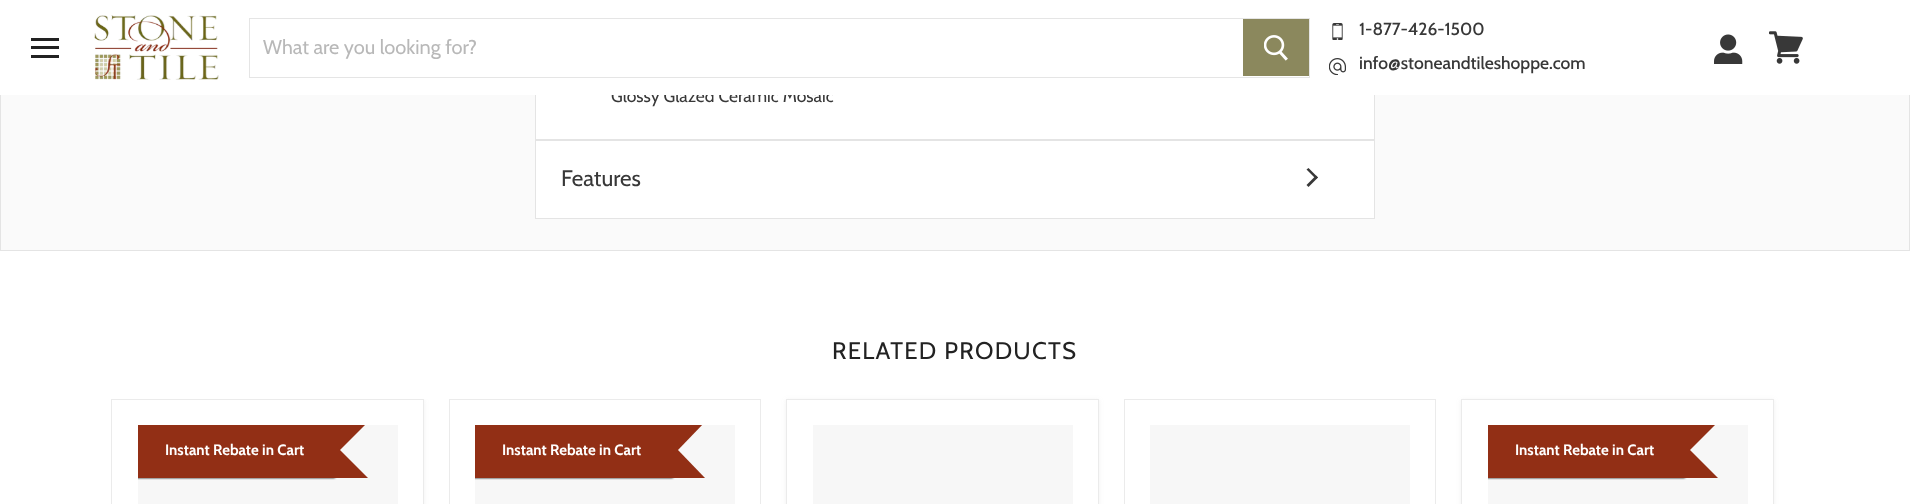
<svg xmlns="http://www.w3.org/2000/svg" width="1910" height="504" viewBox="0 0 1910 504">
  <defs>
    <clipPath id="clip1"><rect x="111" y="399" width="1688" height="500"/></clipPath>
    <clipPath id="clip2"><rect x="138" y="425" width="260" height="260"/></clipPath>
    <clipPath id="clip3"><rect x="138" y="425" width="260" height="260"/></clipPath>
    <clipPath id="clip4"><rect x="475" y="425" width="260" height="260"/></clipPath>
    <clipPath id="clip5"><rect x="475" y="425" width="260" height="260"/></clipPath>
    <clipPath id="clip6"><rect x="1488" y="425" width="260" height="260"/></clipPath>
    <clipPath id="clip7"><rect x="1488" y="425" width="260" height="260"/></clipPath>
  </defs>
  <rect width="100%" height="100%" fill="rgb(255,255,255)"/>
  <rect x="1" y="95" width="1908" height="155" fill="rgb(250,250,250)"/>
  <rect x="0.5" y="-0.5" width="1909" height="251" fill="none" stroke="rgb(228,228,228)"/>
  <rect x="536" y="95" width="838" height="123" fill="rgb(255,255,255)"/>
  <rect x="535.5" y="-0.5" width="839" height="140" fill="none" stroke="rgb(228,228,228)"/>
  <text x="611" y="102" font-family="Cabin" font-size="17.5" fill="rgb(56,56,56)">Glossy Glazed Ceramic Mosaic</text>
  <rect x="0" y="0" width="1910" height="95" fill="rgb(255,255,255)"/>
  <rect x="31" y="38" width="28" height="3" fill="rgb(34,34,34)"/>
  <rect x="31" y="46" width="28" height="3" fill="rgb(34,34,34)"/>
  <rect x="31" y="55" width="28" height="3" fill="rgb(34,34,34)"/>
  <image x="94" y="15" width="125" height="65" href="pic1.png"/>
  <rect x="249.5" y="18.5" width="1060" height="59" fill="none" stroke="rgb(229,229,229)"/>
  <text x="263" y="54" font-family="Cabin" font-size="20" fill="rgb(184,184,184)">What are you looking for?</text>
  <rect x="1243" y="19" width="66" height="57" fill="rgb(139,136,93)"/>
  <image x="1264" y="35" width="24" height="26" href="pic2.png"/>
  <image x="1332" y="23" width="11" height="17" href="pic3.png"/>
  <image x="1329" y="58" width="17" height="17" href="pic4.png"/>
  <g font-family="Cabin" font-size="17.5" font-weight="500" fill="rgb(56,56,56)">
    <text>
      <tspan x="1359" y="35">1-877-426-1500</tspan>
      <tspan x="1359" y="69">info@stoneandtileshoppe.com</tspan>
    </text>
  </g>
  <image x="1714" y="34" width="29" height="30" href="pic5.png"/>
  <image x="1769" y="31" width="34" height="33" href="pic6.png"/>
  <rect x="535.5" y="140.5" width="839" height="78" fill="none" stroke="rgb(228,228,228)"/>
  <text x="561" y="186" font-family="Cabin" font-size="22.5" fill="rgb(56,56,56)">Features</text>
  <path d="M1308.5 168L1318 177.5L1316 179L1306.5 169.5Z" fill="rgb(56,56,56)"/>
  <path d="M1316 175.5L1318 177.5L1308.5 187L1306.5 185Z" fill="rgb(56,56,56)"/>
  <text x="832" y="359" font-family="Cabin" font-size="24" letter-spacing="1.25" fill="rgb(34,34,34)">RELATED PRODUCTS</text>
  <g clip-path="url(#clip1)">
    <rect x="111" y="400" width="313" height="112" fill="rgba(127,127,127,0.11)" filter="blur(2.5px)"/>
  </g>
  <rect x="111.5" y="399.5" width="312" height="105" fill="rgb(255,255,255)" stroke="rgb(235,235,235)"/>
  <rect x="138" y="425" width="260" height="79" fill="rgb(247,247,247)"/>
  <g clip-path="url(#clip2)">
    <rect x="133" y="426" width="202" height="52" fill="rgb(0,0,0)" filter="blur(1px)"/>
  </g>
  <rect x="138" y="425" width="180" height="53" fill="rgb(146,47,21)"/>
  <text x="165" y="455" font-family="Cabin" font-size="15" font-weight="bold" fill="rgb(255,255,255)">Instant Rebate in Cart</text>
  <g clip-path="url(#clip3)">
    <path d="M318 422H368L340 450Z" fill="rgb(146,47,21)"/>
  </g>
  <path d="M368 478H318L340 450Z" fill="rgb(146,47,21)"/>
  <rect x="318" y="425" width="22" height="53" fill="rgb(146,47,21)"/>
  <rect x="449.5" y="399.5" width="311" height="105" fill="none" stroke="rgb(235,235,235)"/>
  <rect x="475" y="425" width="260" height="79" fill="rgb(247,247,247)"/>
  <g clip-path="url(#clip4)">
    <rect x="470" y="426" width="203" height="52" fill="rgb(0,0,0)" filter="blur(1px)"/>
  </g>
  <rect x="475" y="425" width="180" height="53" fill="rgb(146,47,21)"/>
  <text x="502" y="455" font-family="Cabin" font-size="15" font-weight="bold" fill="rgb(255,255,255)">Instant Rebate in Cart</text>
  <g clip-path="url(#clip5)">
    <path d="M655 422H705L678 450Z" fill="rgb(146,47,21)"/>
  </g>
  <path d="M705 478H655L678 450Z" fill="rgb(146,47,21)"/>
  <rect x="655" y="425" width="23" height="53" fill="rgb(146,47,21)"/>
  <rect x="786" y="400" width="313" height="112" fill="rgba(127,127,127,0.11)" filter="blur(2.5px)"/>
  <rect x="786.5" y="399.5" width="312" height="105" fill="rgb(255,255,255)" stroke="rgb(235,235,235)"/>
  <rect x="813" y="425" width="260" height="79" fill="rgb(247,247,247)"/>
  <rect x="1124.5" y="399.5" width="311" height="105" fill="none" stroke="rgb(235,235,235)"/>
  <rect x="1150" y="425" width="260" height="79" fill="rgb(247,247,247)"/>
  <rect x="1461" y="400" width="313" height="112" fill="rgba(127,127,127,0.11)" filter="blur(2.5px)"/>
  <rect x="1461.5" y="399.5" width="312" height="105" fill="rgb(255,255,255)" stroke="rgb(235,235,235)"/>
  <rect x="1488" y="425" width="260" height="79" fill="rgb(247,247,247)"/>
  <g clip-path="url(#clip6)">
    <rect x="1483" y="426" width="202" height="52" fill="rgb(0,0,0)" filter="blur(1px)"/>
  </g>
  <rect x="1488" y="425" width="180" height="53" fill="rgb(146,47,21)"/>
  <text x="1515" y="455" font-family="Cabin" font-size="15" font-weight="bold" fill="rgb(255,255,255)">Instant Rebate in Cart</text>
  <g clip-path="url(#clip7)">
    <path d="M1668 422H1718L1690 450Z" fill="rgb(146,47,21)"/>
  </g>
  <path d="M1718 478H1668L1690 450Z" fill="rgb(146,47,21)"/>
  <rect x="1668" y="425" width="22" height="53" fill="rgb(146,47,21)"/>
</svg>
